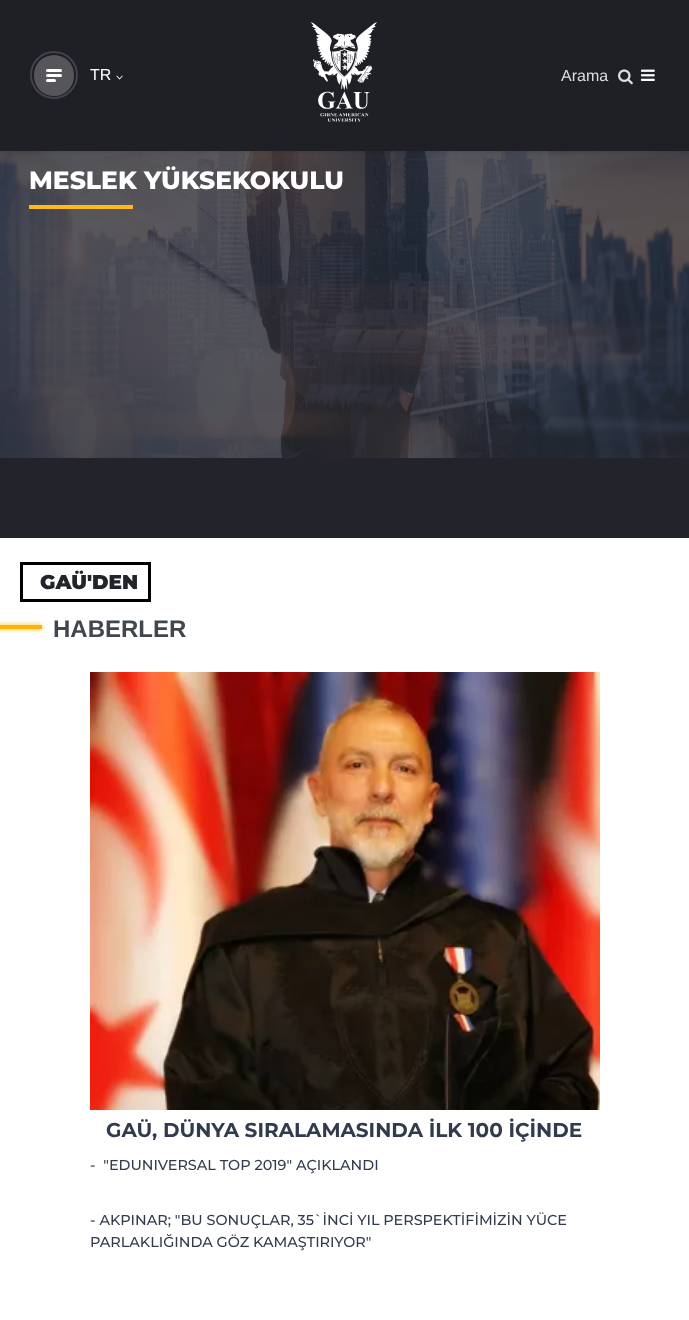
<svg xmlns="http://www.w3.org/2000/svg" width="689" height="1320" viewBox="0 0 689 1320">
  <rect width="100%" height="100%" fill="rgb(255,255,255)"/>
  <image x="0" y="151" width="689" height="307" href="pic5.png"/>
  <rect x="0" y="1" width="689" height="151" fill="rgba(0,0,0,0.1)" filter="blur(1.5px)"/>
  <rect x="0" y="0" width="689" height="151" fill="rgb(31,32,38)"/>
  <rect x="34" y="55" width="40" height="41" rx="20" fill="rgb(85,85,90)"/>
  <circle cx="54" cy="75" r="23" fill="none" stroke="rgb(65,66,75)" stroke-width="2"/>
  <rect x="46" y="69" width="16" height="3" rx="1.5" fill="rgb(255,255,255)"/>
  <rect x="46" y="74" width="16" height="3" rx="1.5" fill="rgb(255,255,255)"/>
  <rect x="46" y="79" width="10" height="3" rx="1.5" fill="rgb(255,255,255)"/>
  <text x="90" y="80" font-family="Liberation Sans" font-size="16" fill="rgb(255,255,255)">TR</text>
  <image x="116" y="75" width="7" height="5" href="pic1.png"/>
  <image x="310" y="22" width="67" height="100" href="pic2.png"/>
  <text x="561" y="81" font-family="Liberation Sans" font-size="16" fill="rgb(222,222,222)">Arama</text>
  <image x="618" y="69" width="15" height="16" href="pic3.png"/>
  <image x="641" y="69" width="14" height="12" href="pic4.png"/>
  <text x="29" y="189" font-family="Montserrat" font-size="25" font-weight="800" fill="rgb(255,255,255)">MESLEK YÜKSEKOKULU</text>
  <rect x="29" y="205" width="104" height="4" fill="rgb(252,187,23)"/>
  <rect x="0" y="458" width="689" height="80" fill="rgb(34,35,43)"/>
  <rect x="21.5" y="563.5" width="128" height="37" fill="none" stroke="rgb(0,0,0)" stroke-width="3"/>
  <text x="40" y="589" font-family="Montserrat" font-size="20" font-weight="900" fill="rgb(33,37,41)">GAÜ'DEN</text>
  <rect x="-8" y="625" width="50" height="4" fill="rgb(253,191,23)" filter="blur(2.5px)"/>
  <rect x="0" y="625" width="42" height="4" fill="rgb(255,179,2)"/>
  <text x="53" y="637" font-family="Liberation Sans" font-size="24" font-weight="bold" fill="rgb(64,71,79)">HABERLER</text>
  <image x="90" y="672" width="510" height="438" href="pic6.png"/>
  <text x="106" y="1137" font-family="Montserrat" font-size="20" font-weight="bold" fill="rgb(50,59,78)">GAÜ, DÜNYA SIRALAMASINDA İLK 100 İÇİNDE</text>
  <g font-family="Montserrat" font-size="14.4" font-weight="500" fill="rgb(50,59,78)">
    <text x="90" y="1170" xml:space="preserve">-  "EDUNIVERSAL TOP 2019" AÇIKLANDI</text>
    <text>
      <tspan x="90" y="1225">- AKPINAR; "BU SONUÇLAR, 35`İNCİ YIL PERSPEKTİFİMİZİN YÜCE</tspan>
      <tspan x="90" y="1247">PARLAKLIĞINDA GÖZ KAMAŞTIRIYOR"</tspan>
    </text>
  </g>
</svg>
